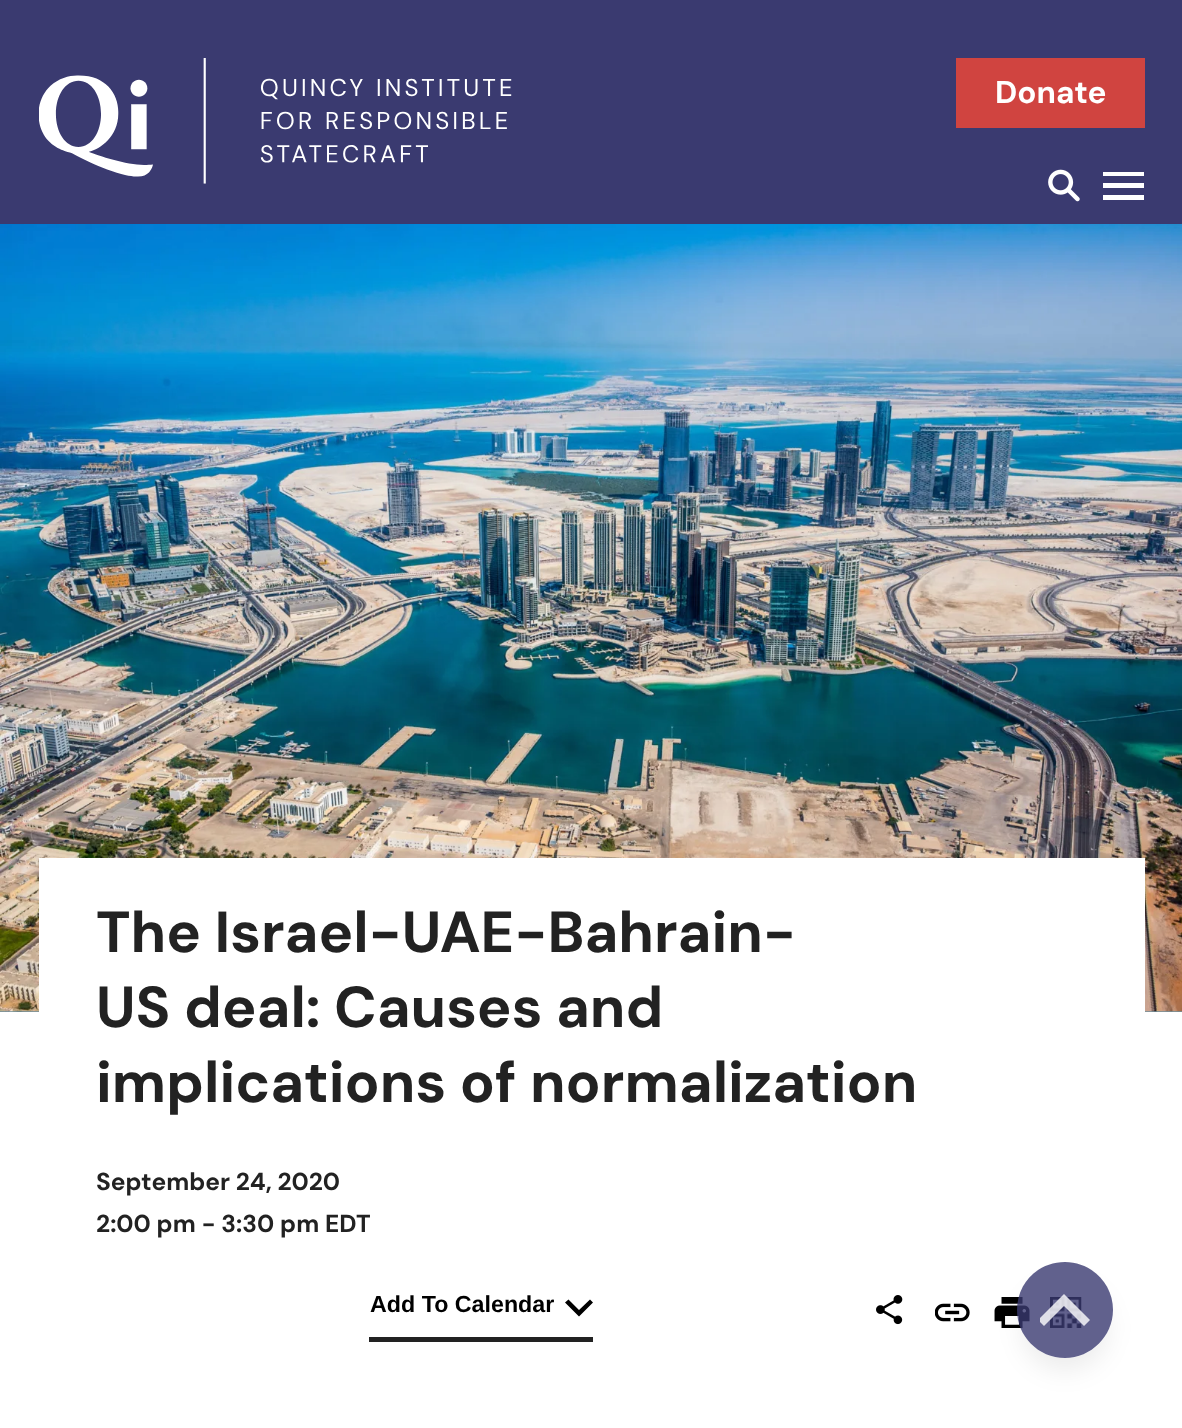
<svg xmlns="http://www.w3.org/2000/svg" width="1182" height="1428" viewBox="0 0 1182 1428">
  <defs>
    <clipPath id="clip1"><rect x="1103" y="165" width="42" height="42"/></clipPath>
    <clipPath id="clip2"><path d="M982 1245H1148V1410H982ZM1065 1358C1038.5 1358 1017 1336.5 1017 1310C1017 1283.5 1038.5 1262 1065 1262C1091.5 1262 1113 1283.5 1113 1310C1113 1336.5 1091.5 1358 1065 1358Z" clip-rule="evenodd"/></clipPath>
    <clipPath id="clip3"><rect x="1040" y="1290" width="52" height="42"/></clipPath>
  </defs>
  <rect width="100%" height="100%" fill="rgb(255,255,255)"/>
  <rect x="0" y="0" width="1182" height="224" fill="rgb(58,58,112)"/>
  <image x="39" y="58" width="473" height="126" href="pic1.png"/>
  <rect x="956" y="58" width="189" height="70" fill="rgb(208,68,64)"/>
  <text x="995" y="103" font-family="DM Sans" font-size="31.5" font-weight="bold" fill="rgb(255,255,255)">Donate</text>
  <image x="1048" y="169" width="32" height="33" href="pic2.png"/>
  <g clip-path="url(#clip1)">
    <path d="M1102 172H1144V176H1102ZM1102 188V183H1144V188ZM1102 200V195H1144V200Z" fill="rgb(255,255,255)"/>
  </g>
  <rect x="0" y="1011" width="1182" height="1" fill="rgb(112,143,155)"/>
  <image x="0" y="224" width="1182" height="788" href="pic3.png"/>
  <rect x="39" y="858" width="1106" height="154" fill="rgb(255,255,255)"/>
  <g font-family="DM Sans" font-size="57.75" font-weight="bold" fill="rgb(34,34,34)">
    <text>
      <tspan x="96" y="952">The Israel-UAE-Bahrain-</tspan>
      <tspan x="96" y="1027">US deal: Causes and</tspan>
      <tspan x="96" y="1102">implications of normalization</tspan>
    </text>
  </g>
  <g font-family="DM Sans" font-size="24.5" font-weight="bold" fill="rgb(34,34,34)">
    <text>
      <tspan x="96" y="1190">September 24, 2020</tspan>
      <tspan x="96" y="1232">2:00 pm - 3:30 pm EDT</tspan>
    </text>
  </g>
  <rect x="369" y="1337" width="224" height="5" fill="rgb(34,34,34)"/>
  <text x="370" y="1312" font-family="Liberation Sans" font-size="23.25" font-weight="bold" fill="rgb(0,0,0)">Add To Calendar</text>
  <path d="M590 1299.5L593 1302.5L579 1316.5L565 1302.5L568.5 1299.5L579 1310Z" fill="rgb(0,0,0)"/>
  <image x="876" y="1295" width="27" height="30" href="pic4.png"/>
  <image x="935" y="1303" width="35" height="19" href="pic5.png"/>
  <image x="994" y="1297" width="36" height="31" href="pic6.png"/>
  <image x="1050" y="1297" width="32" height="31" href="pic7.png"/>
  <g clip-path="url(#clip2)">
    <rect x="1022" y="1285" width="86" height="85" rx="42.5" fill="rgba(0,0,0,0.08)" filter="blur(13px)"/>
  </g>
  <path d="M1065 1358C1038 1358 1017 1336 1017 1310C1017 1283 1038 1262 1065 1262C1091 1262 1113 1283 1113 1310C1113 1336 1091 1358 1065 1358Z" fill="rgba(58,58,112,0.8)"/>
  <g clip-path="url(#clip3)">
    <path d="M1044 1326L1038 1320L1064 1294L1090 1320L1084 1326L1064 1306Z" fill="rgba(255,255,255,0.8)"/>
  </g>
</svg>
